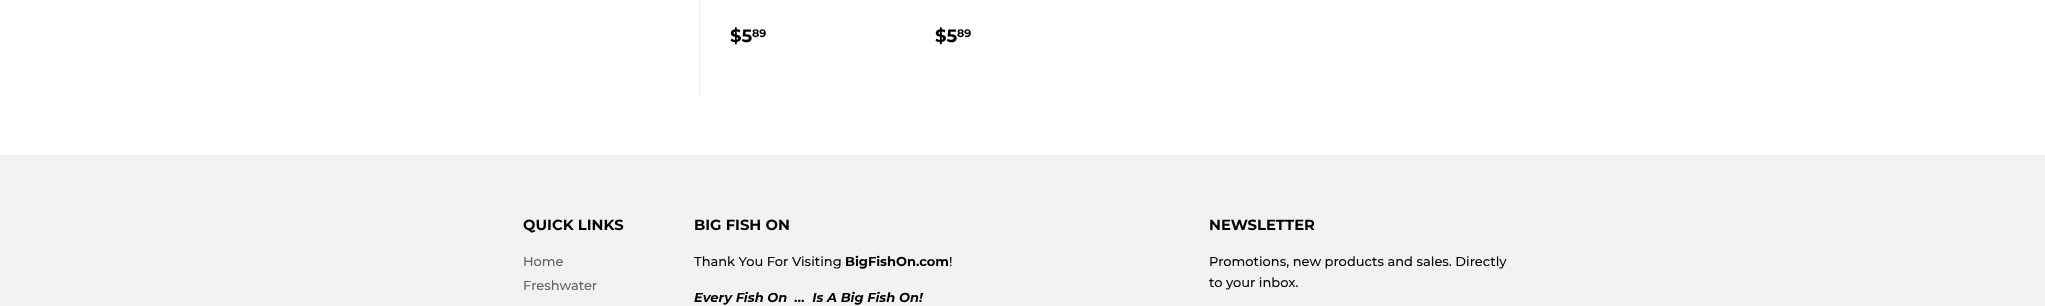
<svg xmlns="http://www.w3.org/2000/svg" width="2045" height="306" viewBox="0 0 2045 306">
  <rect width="100%" height="100%" fill="rgb(255,255,255)"/>
  <rect x="699" y="0" width="1" height="95" fill="rgb(236,236,236)"/>
  <text x="730" y="42" font-family="Montserrat" font-size="18" font-weight="bold" fill="rgb(0,0,0)">$5</text>
  <text x="752" y="37" font-family="Montserrat" font-size="11" font-weight="bold" fill="rgb(0,0,0)">89</text>
  <text x="935" y="42" font-family="Montserrat" font-size="18" font-weight="bold" fill="rgb(0,0,0)">$5</text>
  <text x="957" y="37" font-family="Montserrat" font-size="11" font-weight="bold" fill="rgb(0,0,0)">89</text>
  <rect x="0" y="155" width="2045" height="151" fill="rgb(242,242,242)"/>
  <text x="523" y="230" font-family="Montserrat" font-size="14.75" font-weight="bold" fill="rgb(0,0,0)">QUICK LINKS</text>
  <g font-family="Montserrat" font-size="13" font-weight="500" fill="rgb(99,99,99)">
    <text>
      <tspan x="523" y="266">Home</tspan>
      <tspan x="523" y="290">Freshwater</tspan>
    </text>
  </g>
  <text x="694" y="230" font-family="Montserrat" font-size="14.75" font-weight="bold" fill="rgb(0,0,0)">BIG FISH ON</text>
  <text x="694" y="266" font-family="Montserrat" font-size="13" font-weight="500" fill="rgb(0,0,0)">Thank You For Visiting</text>
  <text x="845" y="266" font-family="Montserrat" font-size="13" font-weight="bold" fill="rgb(0,0,0)">BigFishOn.com</text>
  <text x="949" y="266" font-family="Montserrat" font-size="13" font-weight="500" fill="rgb(0,0,0)">!</text>
  <text x="694" y="302" font-family="Montserrat" font-size="13" font-weight="bold" font-style="italic" fill="rgb(0,0,0)" xml:space="preserve">Every Fish On  ...  Is A Big Fish On!</text>
  <text x="1209" y="230" font-family="Montserrat" font-size="14.75" font-weight="bold" fill="rgb(0,0,0)">NEWSLETTER</text>
  <g font-family="Montserrat" font-size="13" font-weight="500" fill="rgb(0,0,0)">
    <text>
      <tspan x="1209" y="266">Promotions, new products and sales. Directly</tspan>
      <tspan x="1209" y="287">to your inbox.</tspan>
    </text>
  </g>
</svg>
